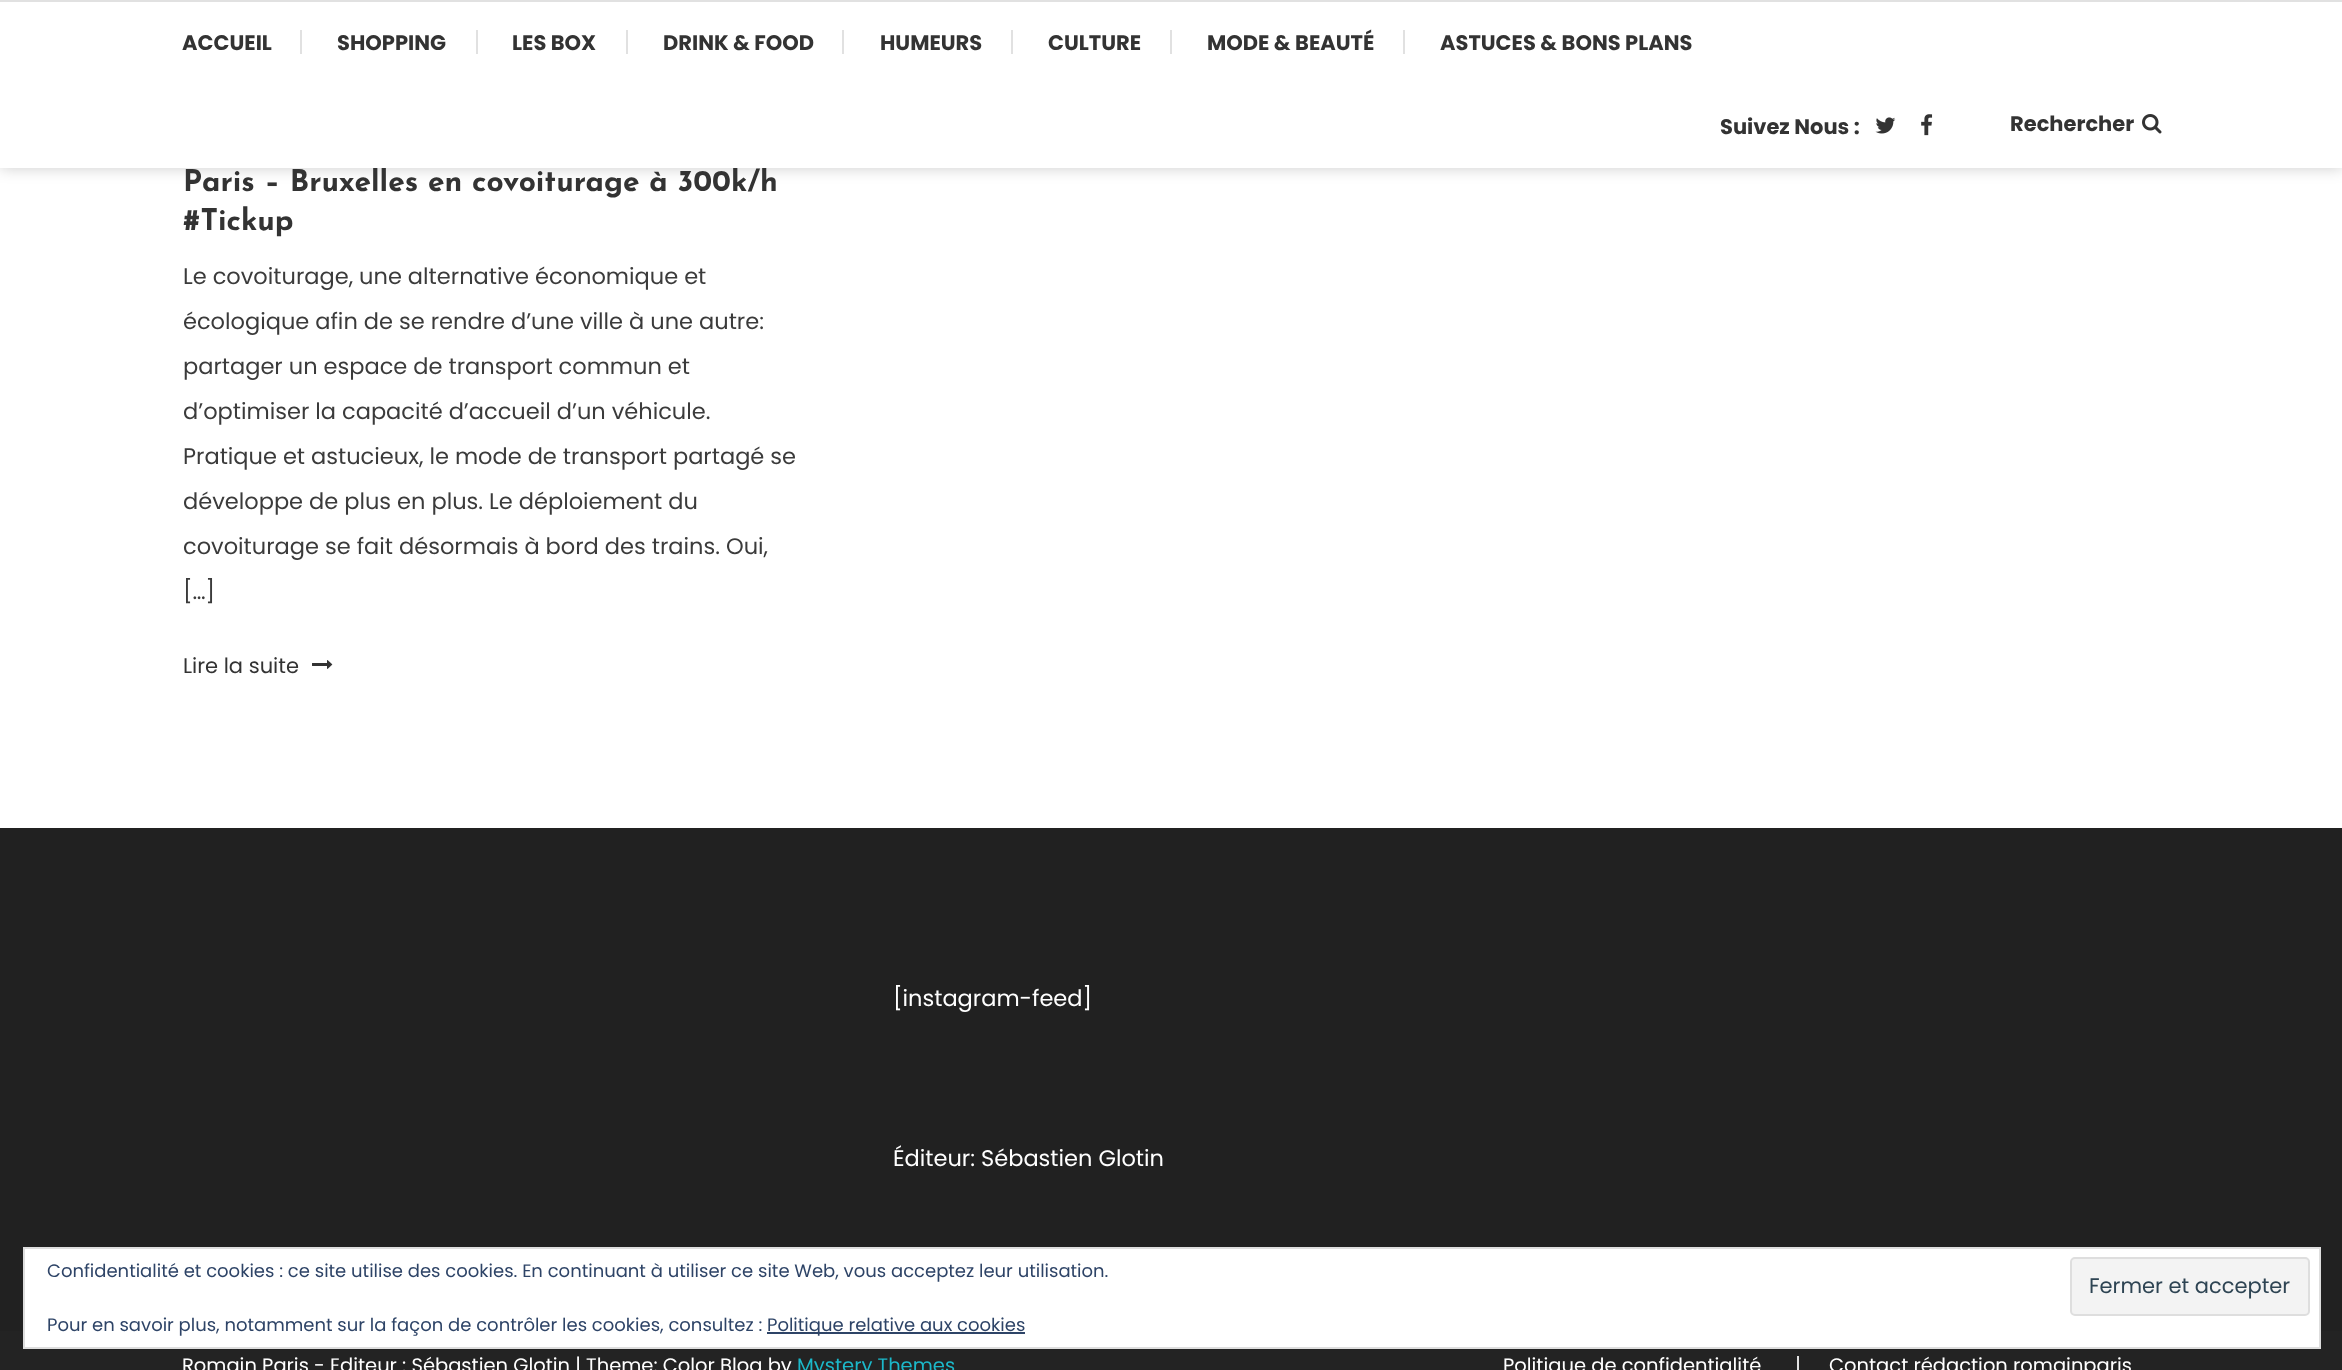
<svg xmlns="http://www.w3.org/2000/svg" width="2342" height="1370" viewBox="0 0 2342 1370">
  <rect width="100%" height="100%" fill="rgb(255,255,255)"/>
  <rect x="0" y="0" width="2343" height="168" fill="rgba(0,0,0,0.2)" filter="blur(7.5px)"/>
  <text x="183" y="191" font-family="Josefin Sans" font-size="30" font-weight="bold" fill="rgb(51,51,51)">Paris – Bruxelles en covoiturage à 300k/h</text>
  <rect x="0" y="2" width="2342" height="166" fill="rgb(255,255,255)"/>
  <rect x="0" y="0" width="2342" height="2" fill="rgb(225,225,225)"/>
  <text x="182" y="50" font-family="Poppins" font-size="21" font-weight="bold" fill="rgb(51,51,51)">ACCUEIL</text>
  <rect x="300" y="30" width="2" height="24" fill="rgb(225,225,225)"/>
  <text x="337" y="50" font-family="Poppins" font-size="21" font-weight="bold" fill="rgb(51,51,51)">SHOPPING</text>
  <rect x="476" y="30" width="2" height="24" fill="rgb(225,225,225)"/>
  <text x="512" y="50" font-family="Poppins" font-size="21" font-weight="bold" fill="rgb(51,51,51)">LES BOX</text>
  <rect x="626" y="30" width="2" height="24" fill="rgb(225,225,225)"/>
  <text x="663" y="50" font-family="Poppins" font-size="21" font-weight="bold" fill="rgb(51,51,51)">DRINK &amp; FOOD</text>
  <rect x="842" y="30" width="2" height="24" fill="rgb(225,225,225)"/>
  <text x="880" y="50" font-family="Poppins" font-size="21" font-weight="bold" fill="rgb(51,51,51)">HUMEURS</text>
  <rect x="1011" y="30" width="2" height="24" fill="rgb(225,225,225)"/>
  <text x="1048" y="50" font-family="Poppins" font-size="21" font-weight="bold" fill="rgb(51,51,51)">CULTURE</text>
  <rect x="1170" y="30" width="2" height="24" fill="rgb(225,225,225)"/>
  <text x="1207" y="50" font-family="Poppins" font-size="21" font-weight="bold" fill="rgb(51,51,51)">MODE &amp; BEAUTÉ</text>
  <rect x="1403" y="30" width="2" height="24" fill="rgb(225,225,225)"/>
  <g font-family="Poppins" font-size="21" font-weight="bold" fill="rgb(51,51,51)">
    <text x="1440" y="50">ASTUCES &amp; BONS PLANS</text>
    <text x="1720" y="134">Suivez Nous :</text>
  </g>
  <image x="1875" y="117" width="21" height="17" href="pic1.png"/>
  <image x="1921" y="114" width="12" height="22" href="pic2.png"/>
  <text x="2010" y="131" font-family="Poppins" font-size="21" font-weight="bold" fill="rgb(51,51,51)">Rechercher</text>
  <image x="2142" y="114" width="20" height="20" href="pic3.png"/>
  <text x="183" y="230" font-family="Josefin Sans" font-size="30" font-weight="bold" fill="rgb(51,51,51)">#Tickup</text>
  <g font-family="Poppins" font-size="22.5" fill="rgb(59,59,59)">
    <text x="183" y="284">Le covoiturage, une alternative économique et</text>
    <text x="183" y="329">écologique afin de se rendre d’une ville à une autre:</text>
    <text x="183" y="374">partager un espace de transport commun et</text>
    <text x="183" y="419">d’optimiser la capacité d’accueil d’un véhicule.</text>
    <text x="183" y="464">Pratique et astucieux, le mode de transport partagé se</text>
    <text x="183" y="509">développe de plus en plus. Le déploiement du</text>
    <text x="183" y="554">covoiturage se fait désormais à bord des trains. Oui,</text>
    <text x="183" y="599">[…]</text>
  </g>
  <text x="183" y="673" font-family="Poppins" font-size="21" fill="rgb(51,51,51)">Lire la suite</text>
  <image x="312" y="660" width="21" height="9" href="pic4.png"/>
  <rect x="0" y="828" width="2342" height="503" fill="rgb(33,33,33)"/>
  <g font-family="Poppins" font-size="22.5" fill="rgb(255,255,255)">
    <text x="893" y="1006">[instagram-feed]</text>
    <text x="893" y="1166">Éditeur: Sébastien Glotin</text>
  </g>
  <rect x="0" y="1331" width="2342" height="39" fill="rgb(35,35,35)"/>
  <text x="182" y="1372" font-family="Poppins" font-size="19.5" fill="rgb(255,255,255)">Romain Paris - Editeur : Sébastien Glotin | Theme: Color Blog by</text>
  <text x="797" y="1372" font-family="Poppins" font-size="19.5" fill="rgb(28,184,201)">Mystery Themes</text>
  <text x="1503" y="1372" font-family="Poppins" font-size="19.5" fill="rgb(255,255,255)">Politique de confidentialité</text>
  <rect x="1797" y="1356" width="2" height="14" fill="rgb(225,225,225)"/>
  <text x="1829" y="1372" font-family="Poppins" font-size="19.5" fill="rgb(255,255,255)">Contact rédaction romainparis</text>
  <rect x="24" y="1248" width="2296" height="100" fill="rgb(255,255,255)" stroke="rgb(222,222,222)" stroke-width="2"/>
  <text x="47" y="1277" font-family="Poppins" font-size="18" fill="rgb(46,68,103)">Confidentialité et cookies : ce site utilise des cookies. En continuant à utiliser ce site Web, vous acceptez leur utilisation.</text>
  <rect x="2071" y="1258" width="238" height="57" rx="4" fill="rgb(243,243,243)" stroke="rgb(222,222,222)" stroke-width="2"/>
  <text x="2089" y="1293" font-family="Poppins" font-size="21" fill="rgb(46,68,83)">Fermer et accepter</text>
  <text x="47" y="1331" font-family="Poppins" font-size="18" fill="rgb(46,68,103)">Pour en savoir plus, notamment sur la façon de contrôler les cookies, consultez :</text>
  <rect x="767" y="1332" width="258" height="2" fill="rgb(46,68,103)"/>
  <text x="767" y="1331" font-family="Poppins" font-size="18" fill="rgb(46,68,103)">Politique relative aux cookies</text>
</svg>
